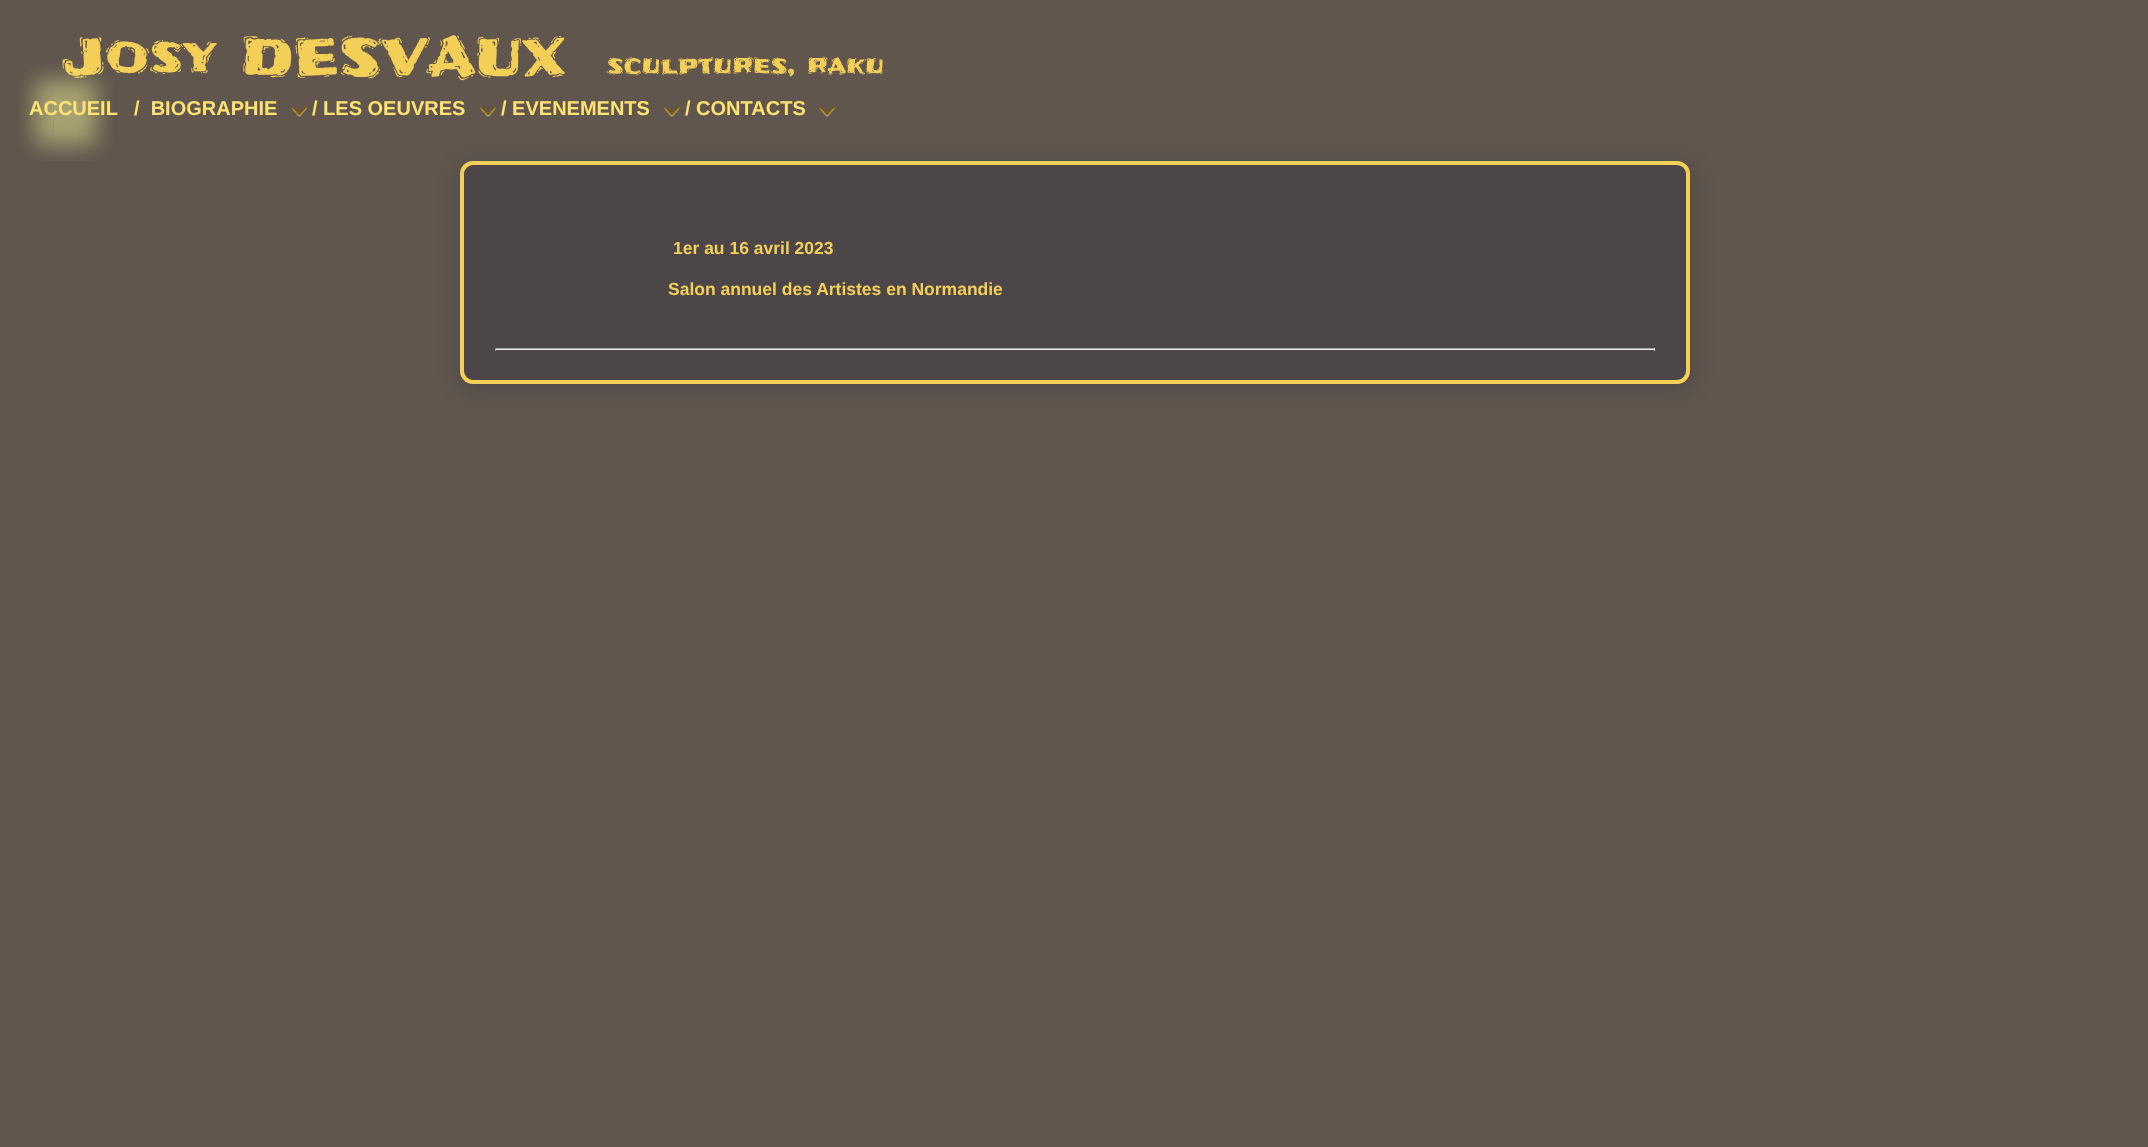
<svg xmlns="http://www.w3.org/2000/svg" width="2148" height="1147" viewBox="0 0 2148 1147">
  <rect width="100%" height="100%" fill="rgb(96,86,77)"/>
  <text x="63" y="75" font-family="Frijole" font-size="50" fill="rgb(244,207,88)">Josy DESVAUX</text>
  <text x="607" y="75" font-family="Frijole" font-size="25" fill="rgb(244,207,88)">sculptures, raku</text>
  <image x="19" y="64" width="35" height="97" href="pic1.png"/>
  <image x="53" y="64" width="60" height="97" href="pic2.png"/>
  <image x="291" y="106" width="17" height="11" href="pic3.png"/>
  <text x="134" y="115" font-family="Liberation Sans" font-size="20" font-weight="bold" fill="rgb(255,227,114)" xml:space="preserve">/  BIOGRAPHIE</text>
  <image x="480" y="106" width="17" height="11" href="pic4.png"/>
  <text x="312" y="115" font-family="Liberation Sans" font-size="20" font-weight="bold" fill="rgb(255,227,114)">/ LES OEUVRES</text>
  <image x="663" y="106" width="18" height="11" href="pic5.png"/>
  <text x="501" y="115" font-family="Liberation Sans" font-size="20" font-weight="bold" fill="rgb(255,227,114)">/ EVENEMENTS</text>
  <image x="819" y="106" width="17" height="11" href="pic6.png"/>
  <g font-family="Liberation Sans" font-size="20" font-weight="bold" fill="rgb(255,227,114)">
    <text x="685" y="115">/ CONTACTS</text>
    <text x="29" y="115">ACCUEIL</text>
  </g>
  <rect x="461" y="165" width="1230" height="223" rx="13" fill="rgb(76,70,72)" filter="blur(9.5px)"/>
  <rect x="462" y="163" width="1226" height="219" rx="11" fill="rgb(76,70,72)" stroke="rgb(244,207,88)" stroke-width="4"/>
  <g font-family="Liberation Sans" font-size="17.5" font-weight="bold" fill="rgb(244,207,88)">
    <text x="673" y="254">1er au 16 avril 2023</text>
    <text x="668" y="295">Salon annuel des Artistes en Normandie</text>
  </g>
  <rect x="495" y="348" width="1160" height="1" fill="rgb(159,159,159)"/>
  <rect x="1654" y="348" width="1" height="3" fill="rgb(238,238,238)"/>
  <rect x="495" y="349" width="1160" height="1" fill="rgb(238,238,238)"/>
  <rect x="495" y="348" width="1" height="3" fill="rgb(159,159,159)"/>
</svg>
